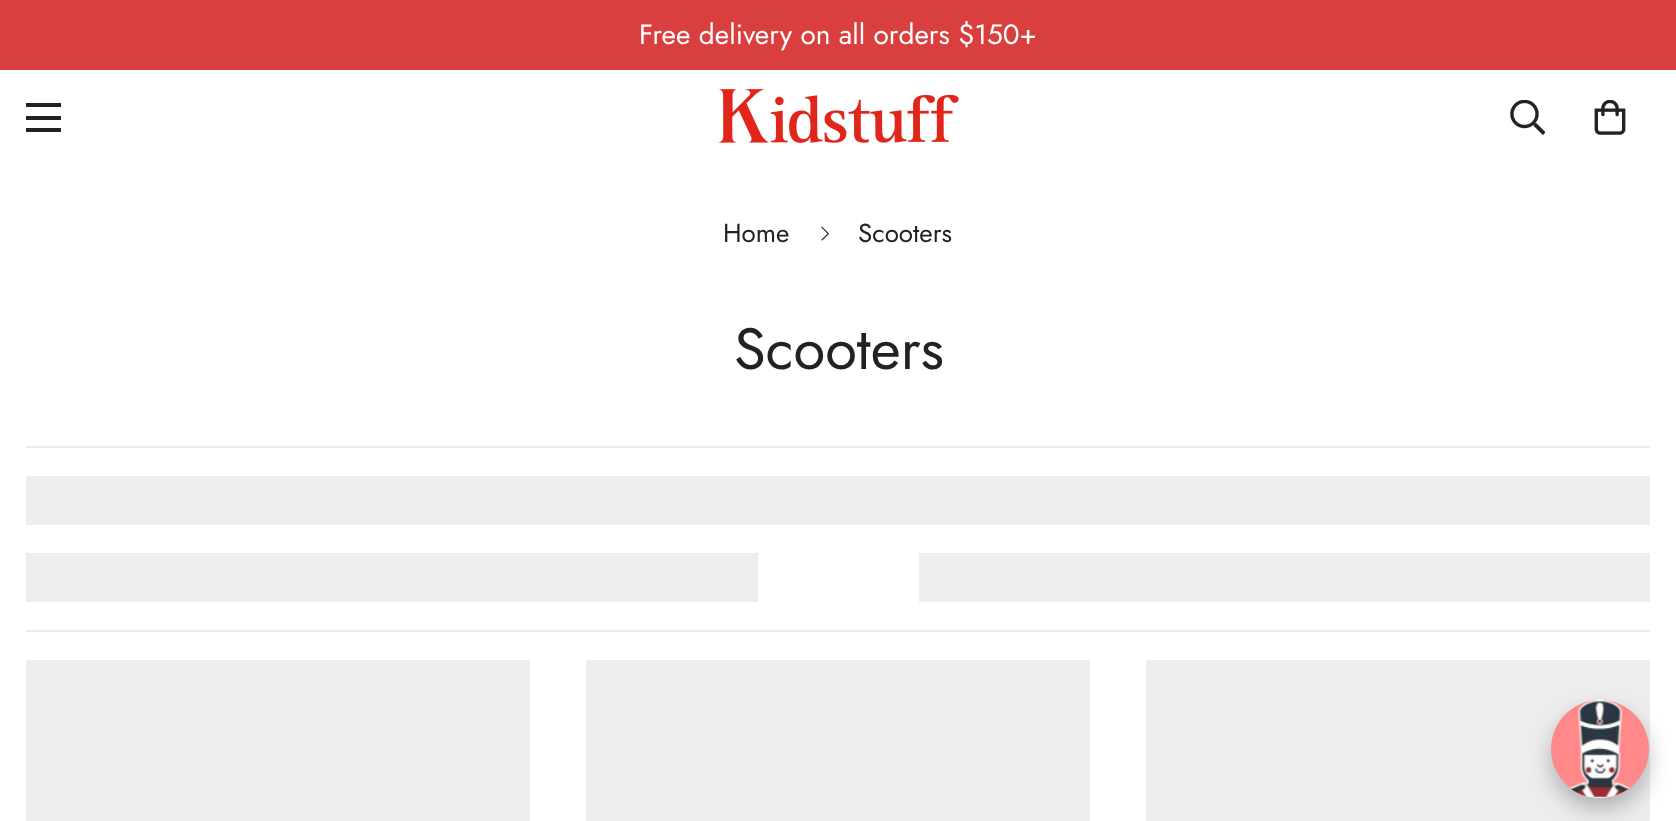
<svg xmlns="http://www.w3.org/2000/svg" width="1676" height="821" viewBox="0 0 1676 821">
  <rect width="100%" height="100%" fill="rgb(255,255,255)"/>
  <rect x="0" y="0" width="1676" height="70" fill="rgb(218,63,63)"/>
  <text x="639" y="44" font-family="Jost" font-size="28" fill="rgb(255,255,255)">Free delivery on all orders $150+</text>
  <rect x="26" y="116" width="35" height="4" fill="rgb(34,34,34)"/>
  <rect x="26" y="103" width="35" height="4" fill="rgb(34,34,34)"/>
  <rect x="26" y="128" width="35" height="4" fill="rgb(34,34,34)"/>
  <image x="718" y="89" width="241" height="54" href="pic1.png"/>
  <image x="1510" y="100" width="35" height="35" href="pic2.png"/>
  <image x="1594" y="100" width="32" height="35" href="pic3.png"/>
  <text x="723" y="242" font-family="Jost" font-size="26" fill="rgb(34,34,34)">Home</text>
  <image x="821" y="226" width="8" height="15" href="pic4.png"/>
  <text x="858" y="242" font-family="Jost" font-size="26" fill="rgb(34,34,34)">Scooters</text>
  <text x="734" y="369" font-family="Jost" font-size="58" fill="rgb(34,34,34)">Scooters</text>
  <rect x="26" y="446" width="1624" height="2" fill="rgb(235,235,235)"/>
  <rect x="26" y="630" width="1624" height="2" fill="rgb(235,235,235)"/>
  <rect x="26" y="476" width="1624" height="49" fill="rgb(237,237,237)"/>
  <rect x="26" y="553" width="732" height="49" fill="rgb(237,237,237)"/>
  <rect x="919" y="553" width="731" height="49" fill="rgb(237,237,237)"/>
  <rect x="26" y="660" width="504" height="161" fill="rgb(237,237,237)"/>
  <rect x="586" y="660" width="504" height="161" fill="rgb(237,237,237)"/>
  <rect x="1146" y="660" width="504" height="161" fill="rgb(237,237,237)"/>
  <rect x="1551" y="711" width="98" height="98" rx="49" fill="rgba(0,0,0,0.25)" filter="blur(10.5px)"/>
  <circle cx="1600" cy="749" r="49" fill="rgb(255,137,136)"/>
  <image x="1569" y="700" width="61" height="98" href="pic5.png"/>
</svg>
